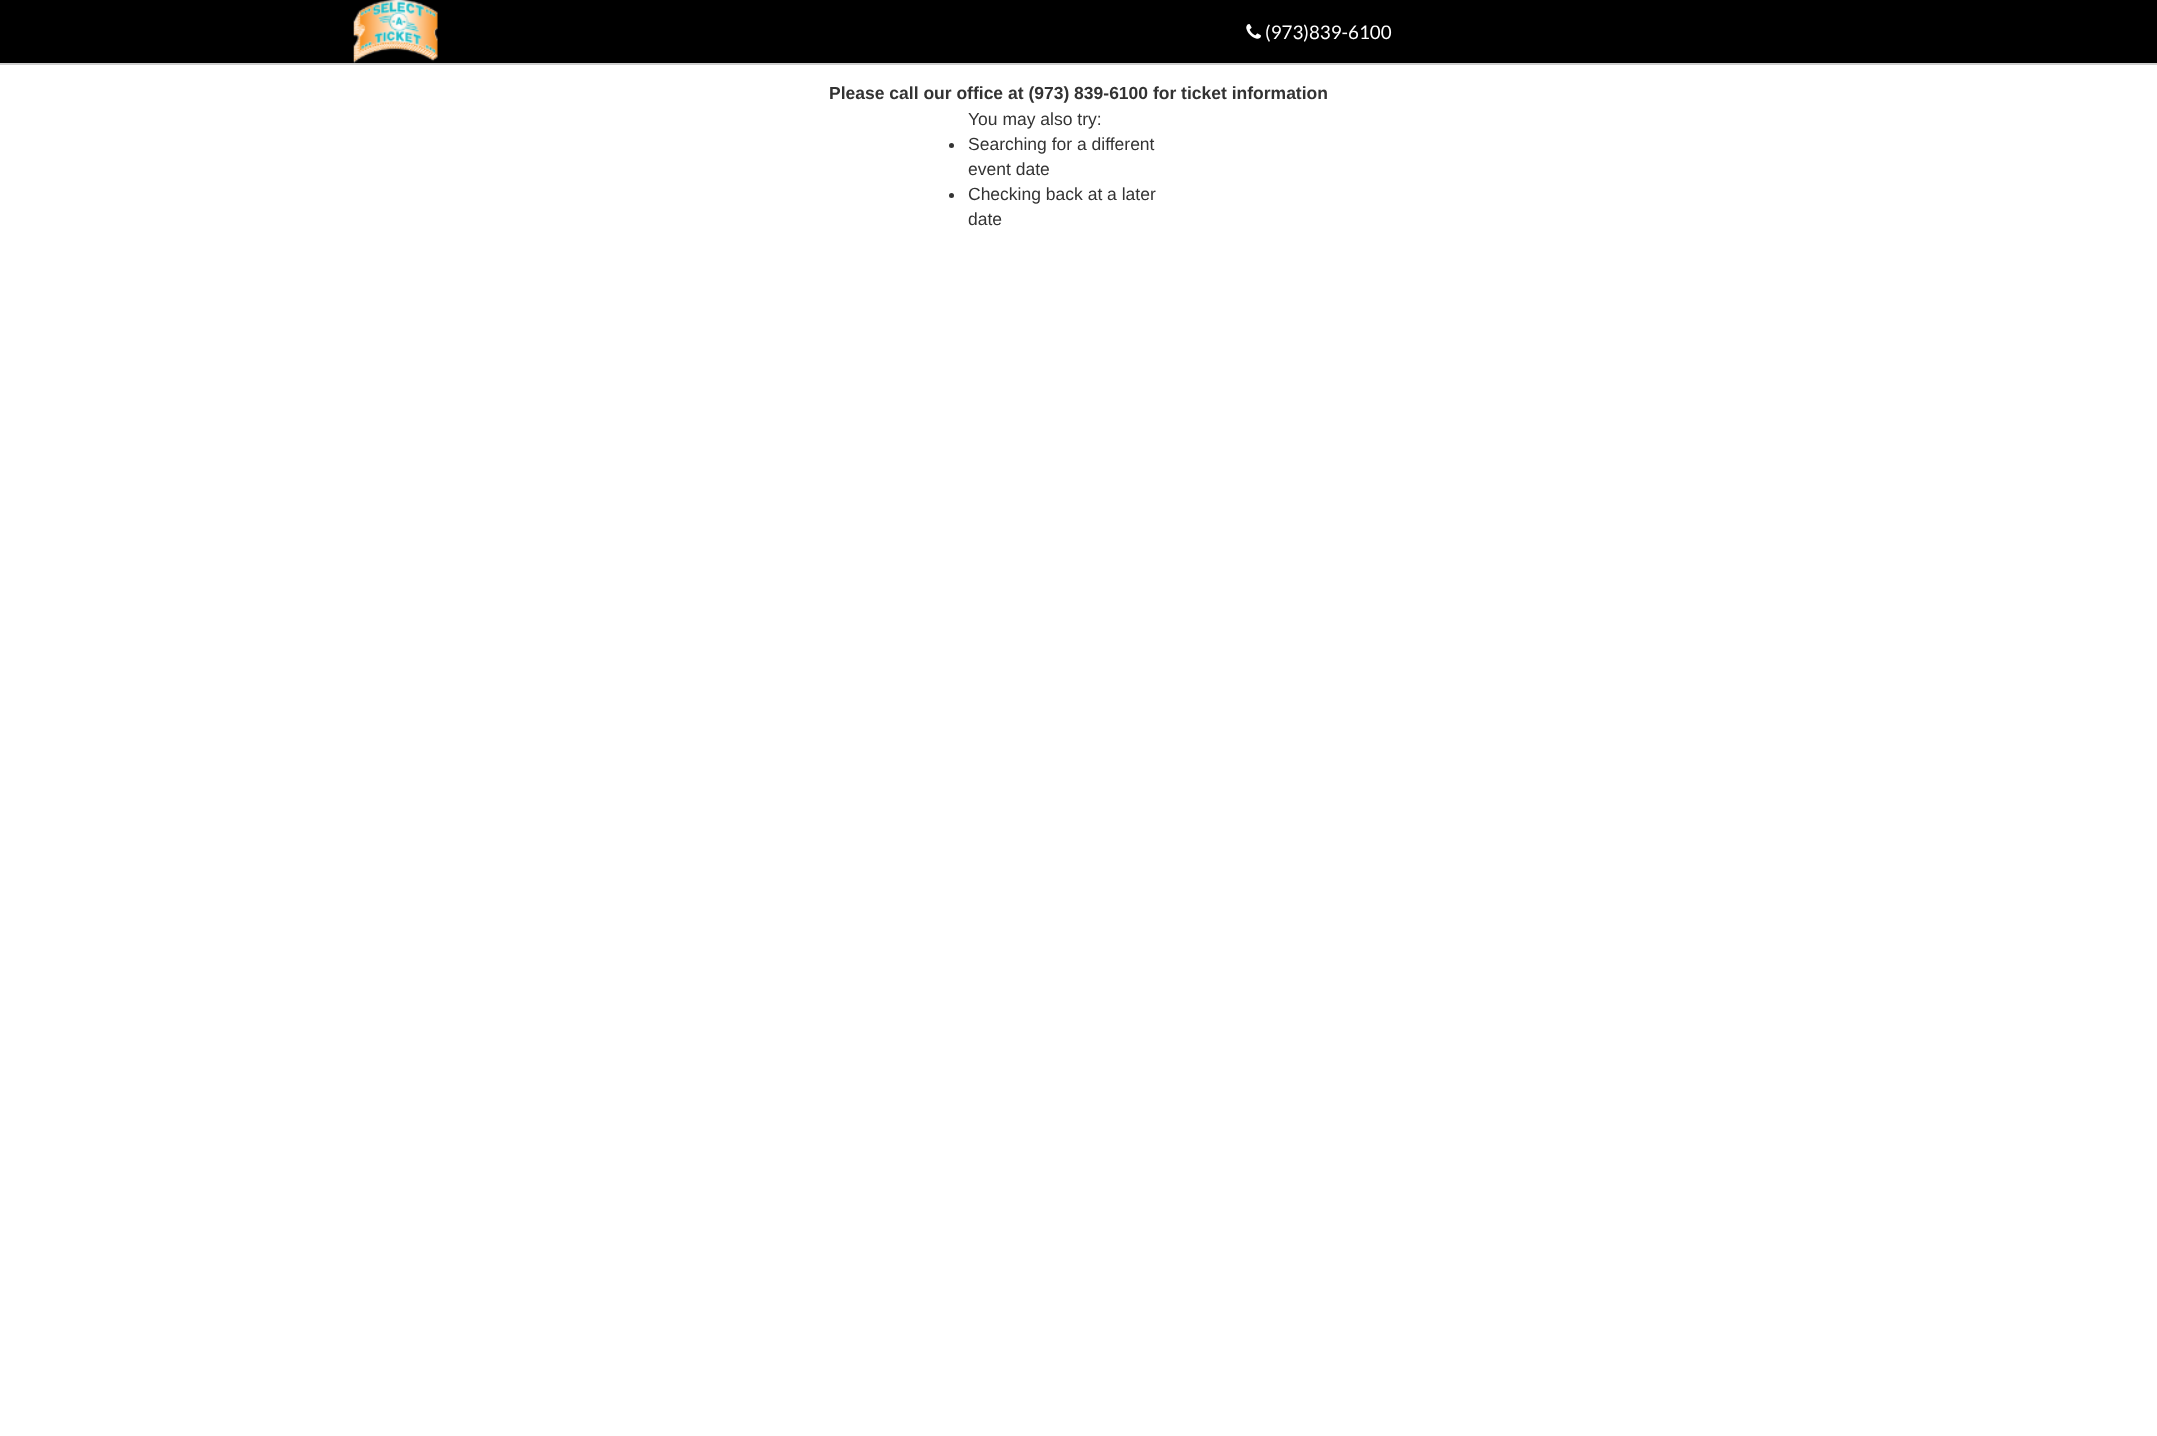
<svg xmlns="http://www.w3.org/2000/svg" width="2157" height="1436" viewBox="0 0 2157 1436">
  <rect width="100%" height="100%" fill="rgb(255,255,255)"/>
  <rect x="0" y="3" width="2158" height="62" fill="rgba(10,10,10,0.2)" filter="blur(0.5px)"/>
  <rect x="0" y="0" width="2157" height="63" fill="rgb(0,0,0)"/>
  <image x="353" y="0" width="85" height="63" href="pic1.png"/>
  <image x="1246" y="24" width="15" height="15" href="pic2.png"/>
  <text x="1265" y="39" font-family="Lato" font-size="18.75" fill="rgb(255,255,255)">(973)839-6100</text>
  <text x="829" y="99" font-family="Liberation Sans" font-size="17.5" font-weight="bold" fill="rgb(51,51,51)">Please call our office at (973) 839-6100 for ticket information</text>
  <text x="968" y="125" font-family="Liberation Sans" font-size="17.5" fill="rgb(51,51,51)">You may also try:</text>
  <circle cx="951.5" cy="145.5" r="2.5" fill="rgb(51,51,51)"/>
  <g font-family="Liberation Sans" font-size="17.5" fill="rgb(51,51,51)">
    <text>
      <tspan x="968" y="150">Searching for a different</tspan>
      <tspan x="968" y="175">event date</tspan>
    </text>
  </g>
  <circle cx="951.5" cy="195.5" r="2.5" fill="rgb(51,51,51)"/>
  <g font-family="Liberation Sans" font-size="17.5" fill="rgb(51,51,51)">
    <text>
      <tspan x="968" y="200">Checking back at a later</tspan>
      <tspan x="968" y="225">date</tspan>
    </text>
  </g>
</svg>
